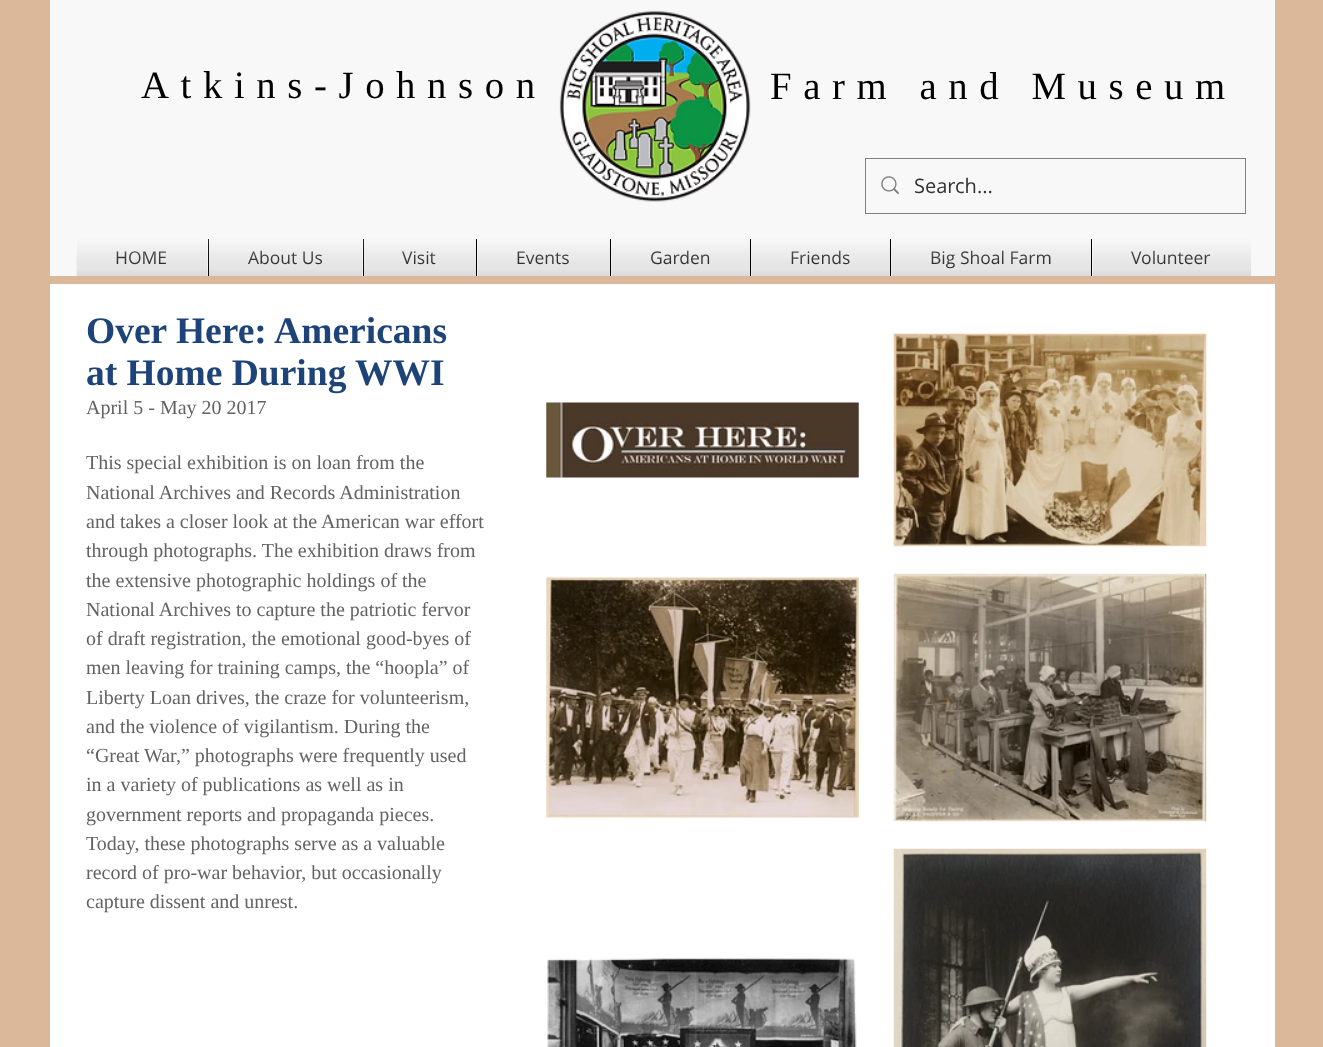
<svg xmlns="http://www.w3.org/2000/svg" width="1323" height="1047" viewBox="0 0 1323 1047">
  <rect width="100%" height="100%" fill="rgb(219,184,154)"/>
  <rect x="50" y="0" width="1225" height="276" fill="rgb(248,248,248)"/>
  <text x="141" y="98" font-family="Liberation Serif" font-size="38.75" letter-spacing="11.6" fill="rgb(0,0,0)">Atkins-Johnson</text>
  <image x="559" y="11" width="192" height="191" href="pic1.png"/>
  <text x="770" y="99" font-family="Liberation Serif" font-size="38.75" letter-spacing="11.6" fill="rgb(0,0,0)">Farm and Museum</text>
  <rect x="865.5" y="158.5" width="380" height="55" fill="none" stroke="rgb(129,129,129)"/>
  <image x="881" y="176" width="18" height="19" href="pic2.png"/>
  <text x="914" y="193" font-family="Open Sans" font-size="20" fill="rgb(50,50,50)">Search...</text>
  <rect x="76" y="239" width="132" height="37" fill="rgb(255,255,255)"/>
  <text x="115" y="264" font-family="Open Sans" font-size="17.5" fill="rgb(0,0,0)">HOME</text>
  <image x="116" y="251" width="51" height="14" href="pic3.png"/>
  <image x="76" y="239" width="132" height="37" href="pic4.png"/>
  <rect x="209" y="239" width="154" height="37" fill="rgb(255,255,255)"/>
  <rect x="208" y="239" width="1" height="37" fill="rgb(0,0,0)"/>
  <text x="248" y="264" font-family="Open Sans" font-size="17.5" fill="rgb(0,0,0)">About Us</text>
  <image x="208" y="239" width="114" height="37" href="pic5.png"/>
  <image x="209" y="239" width="154" height="37" href="pic6.png"/>
  <rect x="364" y="239" width="112" height="37" fill="rgb(255,255,255)"/>
  <rect x="363" y="239" width="1" height="37" fill="rgb(0,0,0)"/>
  <text x="402" y="264" font-family="Open Sans" font-size="17.5" fill="rgb(0,0,0)">Visit</text>
  <image x="363" y="239" width="73" height="37" href="pic7.png"/>
  <image x="364" y="239" width="112" height="37" href="pic8.png"/>
  <rect x="477" y="239" width="133" height="37" fill="rgb(255,255,255)"/>
  <rect x="476" y="239" width="1" height="37" fill="rgb(0,0,0)"/>
  <text x="516" y="264" font-family="Open Sans" font-size="17.5" fill="rgb(0,0,0)">Events</text>
  <image x="518" y="251" width="51" height="14" href="pic9.png"/>
  <image x="477" y="239" width="133" height="37" href="pic10.png"/>
  <rect x="611" y="239" width="139" height="37" fill="rgb(255,255,255)"/>
  <rect x="610" y="239" width="1" height="37" fill="rgb(0,0,0)"/>
  <text x="650" y="264" font-family="Open Sans" font-size="17.5" fill="rgb(0,0,0)">Garden</text>
  <image x="650" y="250" width="59" height="15" href="pic11.png"/>
  <image x="611" y="239" width="139" height="37" href="pic12.png"/>
  <rect x="751" y="239" width="139" height="37" fill="rgb(255,255,255)"/>
  <rect x="750" y="239" width="1" height="37" fill="rgb(0,0,0)"/>
  <text x="790" y="264" font-family="Open Sans" font-size="17.5" fill="rgb(0,0,0)">Friends</text>
  <image x="791" y="250" width="59" height="15" href="pic13.png"/>
  <image x="751" y="239" width="139" height="37" href="pic14.png"/>
  <rect x="891" y="239" width="200" height="37" fill="rgb(255,255,255)"/>
  <rect x="890" y="239" width="1" height="37" fill="rgb(0,0,0)"/>
  <text x="930" y="264" font-family="Open Sans" font-size="17.5" fill="rgb(0,0,0)">Big Shoal Farm</text>
  <image x="931" y="250" width="119" height="19" href="pic15.png"/>
  <image x="891" y="239" width="200" height="37" href="pic16.png"/>
  <rect x="1092" y="239" width="159" height="37" fill="rgb(255,255,255)"/>
  <rect x="1091" y="239" width="1" height="37" fill="rgb(0,0,0)"/>
  <text x="1131" y="264" font-family="Open Sans" font-size="17.5" fill="rgb(0,0,0)">Volunteer</text>
  <image x="1131" y="250" width="80" height="15" href="pic17.png"/>
  <image x="1092" y="239" width="159" height="37" href="pic18.png"/>
  <rect x="50" y="284" width="1225" height="763" fill="rgb(255,255,255)"/>
  <g font-family="Liberation Serif" font-size="37.5" font-weight="bold" fill="rgb(29,67,121)">
    <text>
      <tspan x="86" y="343">Over Here: Americans</tspan>
      <tspan x="86" y="385">at Home During WWI</tspan>
    </text>
  </g>
  <image x="546" y="402" width="313" height="76" href="pic19.png"/>
  <image x="893" y="333" width="314" height="214" href="pic20.png"/>
  <image x="546" y="577" width="313" height="241" href="pic21.png"/>
  <image x="893" y="573" width="314" height="249" href="pic22.png"/>
  <image x="547" y="958" width="310" height="89" href="pic23.png"/>
  <image x="893" y="848" width="314" height="199" href="pic24.png"/>
  <g font-family="Liberation Serif" font-size="20" fill="rgb(99,99,99)">
    <text x="86" y="414">April 5 - May 20 2017</text>
    <text>
      <tspan x="86" y="469">This special exhibition is on loan from the</tspan>
      <tspan x="86" y="499">National Archives and Records Administration</tspan>
      <tspan x="86" y="528">and takes a closer look at the American war effort</tspan>
      <tspan x="86" y="557">through photographs. The exhibition draws from</tspan>
      <tspan x="86" y="587">the extensive photographic holdings of the</tspan>
      <tspan x="86" y="616">National Archives to capture the patriotic fervor</tspan>
      <tspan x="86" y="645">of draft registration, the emotional good-byes of</tspan>
      <tspan x="86" y="674">men leaving for training camps, the “hoopla” of</tspan>
      <tspan x="86" y="704">Liberty Loan drives, the craze for volunteerism,</tspan>
      <tspan x="86" y="733">and the violence of vigilantism. During the</tspan>
      <tspan x="86" y="762">“Great War,” photographs were frequently used</tspan>
      <tspan x="86" y="791">in a variety of publications as well as in</tspan>
      <tspan x="86" y="821">government reports and propaganda pieces.</tspan>
      <tspan x="86" y="850">Today, these photographs serve as a valuable</tspan>
      <tspan x="86" y="879">record of pro-war behavior, but occasionally</tspan>
      <tspan x="86" y="908">capture dissent and unrest.</tspan>
    </text>
  </g>
</svg>
